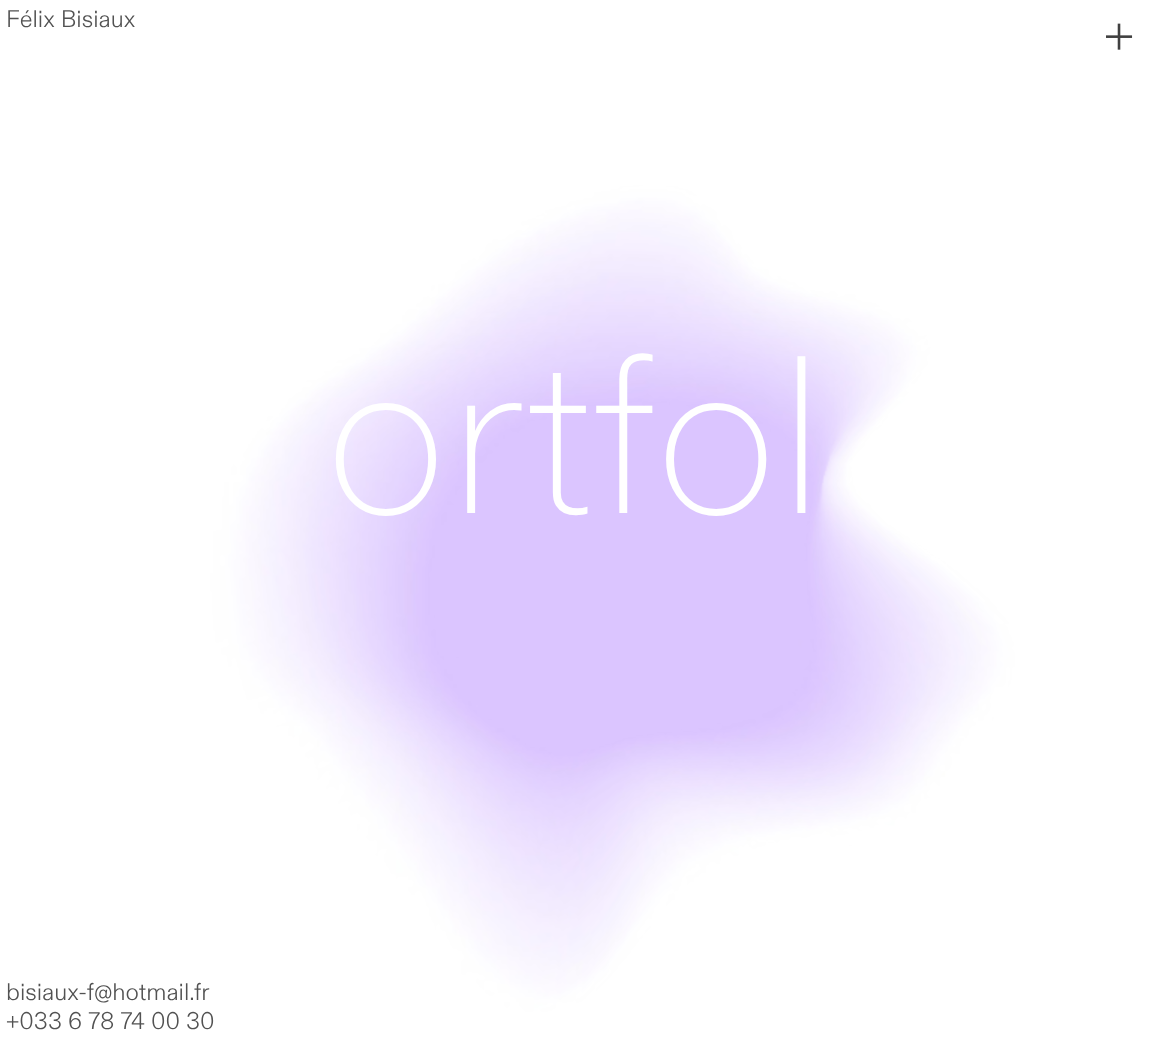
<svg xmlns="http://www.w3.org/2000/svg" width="1151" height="1042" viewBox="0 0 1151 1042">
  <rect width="100%" height="100%" fill="rgb(255,255,255)"/>
  <image x="0" y="0" width="1151" height="1042" href="pic1.png"/>
  <text x="6" y="27" font-family="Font" font-size="24" font-weight="300" fill="rgb(82,82,82)">Félix Bisiaux</text>
  <text x="324" y="513" font-family="Font" font-size="224" font-weight="200" fill="rgb(255,255,255)">ortfol</text>
  <g font-family="Font" font-size="24" font-weight="300" fill="rgb(82,82,82)">
    <text>
      <tspan x="6" y="1000">bisiaux-f@hotmail.fr</tspan>
      <tspan x="6" y="1029">+033 6 78 74 00 30</tspan>
    </text>
  </g>
  <image x="1106" y="23" width="27" height="27" href="pic2.png"/>
</svg>
